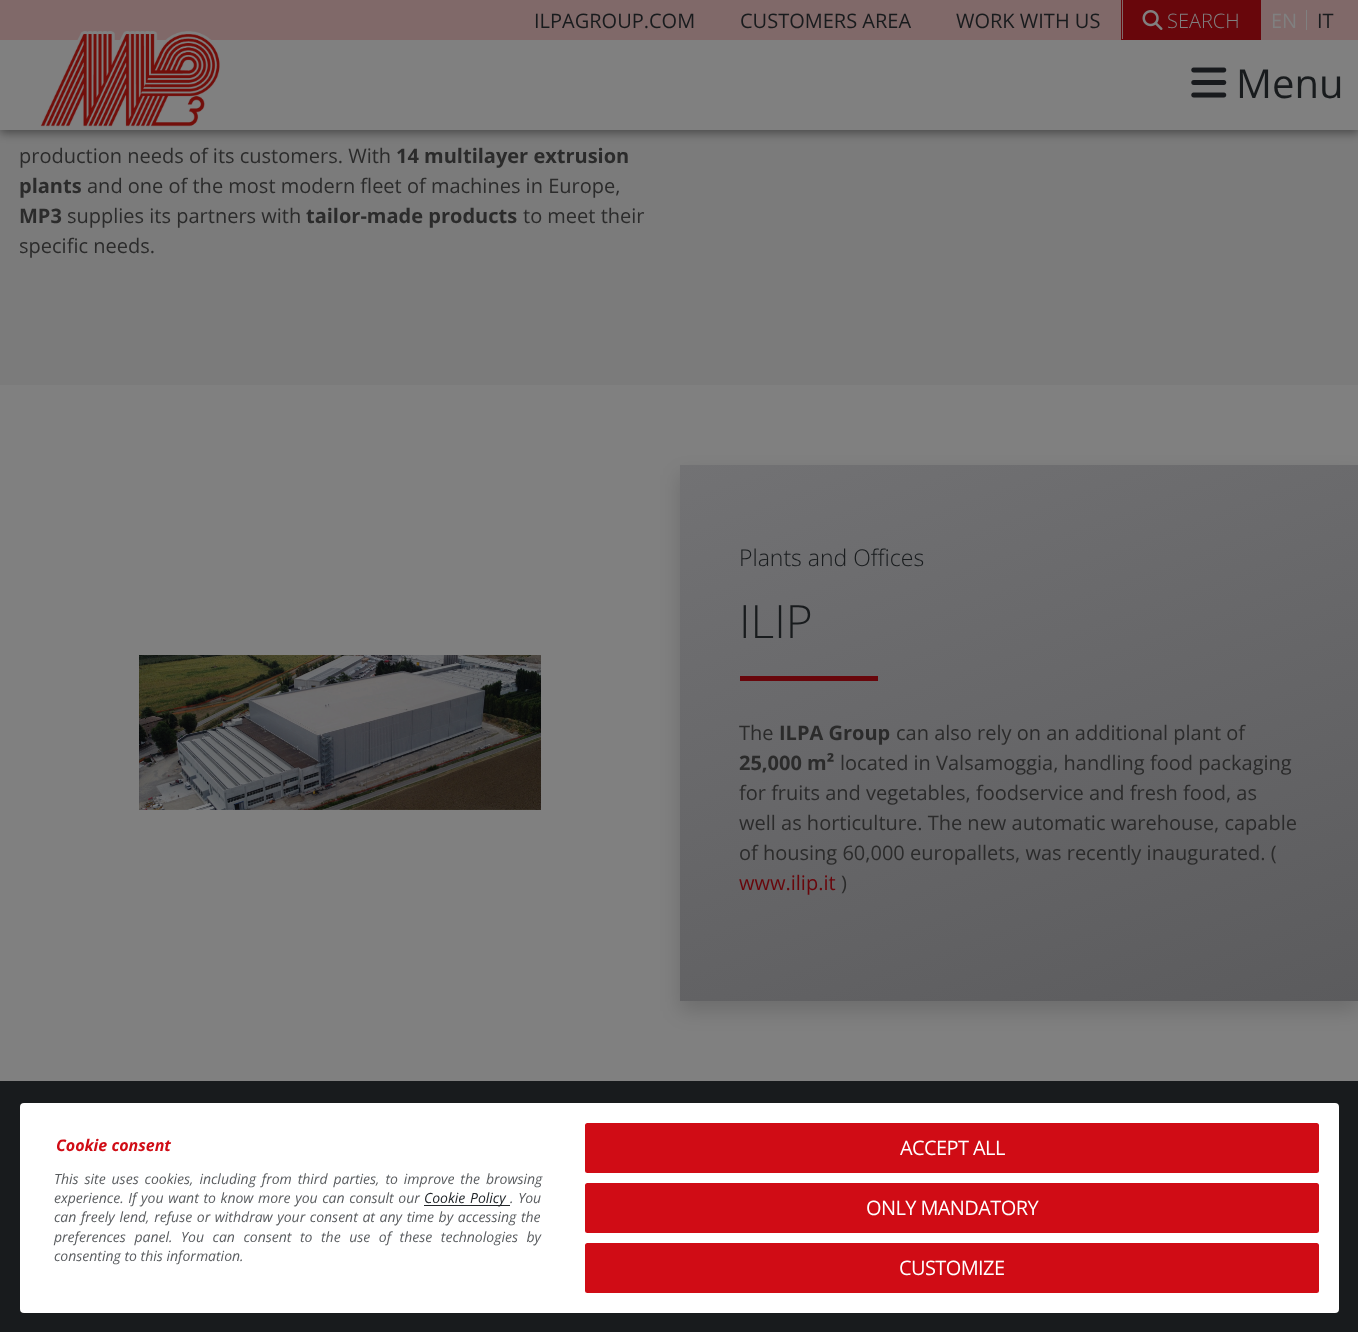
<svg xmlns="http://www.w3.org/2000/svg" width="1358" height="1332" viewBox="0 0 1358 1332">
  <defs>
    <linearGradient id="g1" gradientUnits="userSpaceOnUse" x1="894" y1="387" x2="1145" y2="1079"><stop offset="0" stop-color="rgb(114,114,116)"/><stop offset="1" stop-color="rgb(91,91,93)"/></linearGradient>
  </defs>
  <rect width="100%" height="100%" fill="rgb(128,128,128)"/>
  <rect x="0" y="130" width="1358" height="255" fill="rgb(123,123,123)"/>
  <rect x="0" y="3" width="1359" height="130" fill="rgba(0,0,0,0.4)" filter="blur(5px)"/>
  <rect x="0" y="40" width="1358" height="90" fill="rgb(128,128,128)"/>
  <rect x="0" y="0" width="1358" height="40" fill="rgb(128,105,105)"/>
  <g font-family="Open Sans" font-size="20" fill="rgb(24,27,29)">
    <text x="534" y="28">ILPAGROUP.COM</text>
    <text x="740" y="28">CUSTOMERS AREA</text>
    <text x="956" y="28">WORK WITH US</text>
  </g>
  <rect x="1123" y="0" width="137" height="39" fill="rgb(104,6,11)"/>
  <rect x="1260" y="0" width="1" height="40" fill="rgb(104,6,11)"/>
  <rect x="1121" y="39" width="140" height="1" fill="rgb(104,6,11)"/>
  <rect x="1121" y="0" width="1" height="40" fill="rgb(104,6,11)"/>
  <image x="1142" y="10" width="21" height="20" href="pic1.png"/>
  <text x="1167" y="28" font-family="Open Sans" font-size="20" font-weight="300" fill="rgb(128,128,128)">SEARCH</text>
  <text x="1271" y="28" font-family="Open Sans" font-size="20" fill="rgb(128,128,128)">EN</text>
  <rect x="1306" y="10" width="1" height="20" fill="rgb(128,128,128)"/>
  <text x="1317" y="28" font-family="Open Sans" font-size="20" fill="rgb(24,27,29)">IT</text>
  <image x="40" y="31" width="180" height="96" href="pic2.png"/>
  <image x="1191" y="67" width="36" height="31" href="pic3.png"/>
  <text x="1236" y="98" font-family="Open Sans" font-size="40" fill="rgb(24,27,29)">Menu</text>
  <text x="19" y="163" font-family="Open Sans" font-size="20" fill="rgb(43,43,43)">production needs of its customers. With</text>
  <g font-family="Open Sans" font-size="20" font-weight="bold" fill="rgb(43,43,43)">
    <text x="396" y="163">14 multilayer extrusion</text>
    <text x="19" y="193">plants</text>
  </g>
  <text x="87" y="193" font-family="Open Sans" font-size="20" fill="rgb(43,43,43)">and one of the most modern fleet of machines in Europe,</text>
  <text x="19" y="223" font-family="Open Sans" font-size="20" font-weight="bold" fill="rgb(43,43,43)">MP3</text>
  <text x="67" y="223" font-family="Open Sans" font-size="20" fill="rgb(43,43,43)">supplies its partners with</text>
  <text x="306" y="223" font-family="Open Sans" font-size="20" font-weight="bold" fill="rgb(43,43,43)">tailor-made products</text>
  <g font-family="Open Sans" font-size="20" fill="rgb(43,43,43)">
    <text x="523" y="223">to meet their</text>
    <text x="19" y="253">specific needs.</text>
  </g>
  <image x="139" y="655" width="402" height="155" href="pic4.png"/>
  <rect x="680" y="475" width="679" height="536" fill="rgba(0,0,0,0.15)" filter="blur(10px)"/>
  <rect x="680" y="465" width="678" height="536" fill="url(#g1)"/>
  <text x="739" y="566" font-family="Open Sans" font-size="23" font-weight="300" fill="rgb(24,27,29)">Plants and Offices</text>
  <text x="739" y="638" font-family="Open Sans" font-size="46" font-weight="300" fill="rgb(24,27,29)">ILIP</text>
  <rect x="740" y="676" width="138" height="5" fill="rgb(104,6,11)"/>
  <text x="739" y="740" font-family="Open Sans" font-size="20" fill="rgb(43,43,43)">The</text>
  <text x="779" y="740" font-family="Open Sans" font-size="20" font-weight="bold" fill="rgb(43,43,43)">ILPA Group</text>
  <text x="896" y="740" font-family="Open Sans" font-size="20" fill="rgb(43,43,43)">can also rely on an additional plant of</text>
  <text x="739" y="770" font-family="Open Sans" font-size="20" font-weight="bold" fill="rgb(43,43,43)">25,000 m²</text>
  <g font-family="Open Sans" font-size="20" fill="rgb(43,43,43)">
    <text x="840" y="770">located in Valsamoggia, handling food packaging</text>
    <text>
      <tspan x="739" y="800">for fruits and vegetables, foodservice and fresh food, as</tspan>
      <tspan x="739" y="830">well as horticulture. The new automatic warehouse, capable</tspan>
      <tspan x="739" y="860">of housing 60,000 europallets, was recently inaugurated. (</tspan>
    </text>
  </g>
  <text x="739" y="890" font-family="Open Sans" font-size="20" fill="rgb(104,6,11)">www.ilip.it</text>
  <text x="841" y="890" font-family="Open Sans" font-size="20" fill="rgb(43,43,43)">)</text>
  <rect x="0" y="1081" width="1358" height="251" fill="rgb(24,27,29)"/>
  <rect x="20" y="1103" width="1319" height="210" rx="4" fill="rgb(255,255,255)"/>
  <text x="56" y="1151" font-family="Open Sans" font-size="16" font-weight="bold" font-style="italic" fill="rgb(208,12,21)">Cookie consent</text>
  <g font-family="Open Sans" font-size="14" font-style="italic" fill="rgb(89,92,95)">
    <text>
      <tspan x="54" y="1184" word-spacing="2.25">This site uses cookies, including from third parties, to improve the browsing</tspan>
      <tspan x="54" y="1203" word-spacing="1">experience. If you want to know more you can consult our</tspan>
    </text>
  </g>
  <rect x="424" y="1205" width="86" height="1" fill="rgb(33,37,41)"/>
  <text x="424" y="1203" word-spacing="1" font-family="Open Sans" font-size="14" font-style="italic" fill="rgb(33,37,41)">Cookie Policy</text>
  <g font-family="Open Sans" font-size="14" font-style="italic" fill="rgb(89,92,95)">
    <text x="510" y="1203" word-spacing="1">. You</text>
    <text>
      <tspan x="54" y="1222" word-spacing="1">can freely lend, refuse or withdraw your consent at any time by accessing the</tspan>
      <tspan x="54" y="1242" word-spacing="4.9">preferences panel. You can consent to the use of these technologies by</tspan>
      <tspan x="54" y="1261">consenting to this information.</tspan>
    </text>
  </g>
  <rect x="586.5" y="1124.5" width="731" height="47" rx="1" fill="rgb(208,12,21)" stroke="rgb(208,12,21)" stroke-width="3"/>
  <text x="900" y="1155" font-family="Open Sans" font-size="20" letter-spacing="-0.6" fill="rgb(255,255,255)">ACCEPT ALL</text>
  <rect x="586.5" y="1184.5" width="731" height="47" rx="1" fill="rgb(208,12,21)" stroke="rgb(208,12,21)" stroke-width="3"/>
  <text x="866" y="1215" font-family="Open Sans" font-size="20" letter-spacing="-0.6" fill="rgb(255,255,255)">ONLY MANDATORY</text>
  <rect x="586.5" y="1244.5" width="731" height="47" rx="1" fill="rgb(208,12,21)" stroke="rgb(208,12,21)" stroke-width="3"/>
  <text x="899" y="1275" font-family="Open Sans" font-size="20" letter-spacing="-0.6" fill="rgb(255,255,255)">CUSTOMIZE</text>
</svg>
